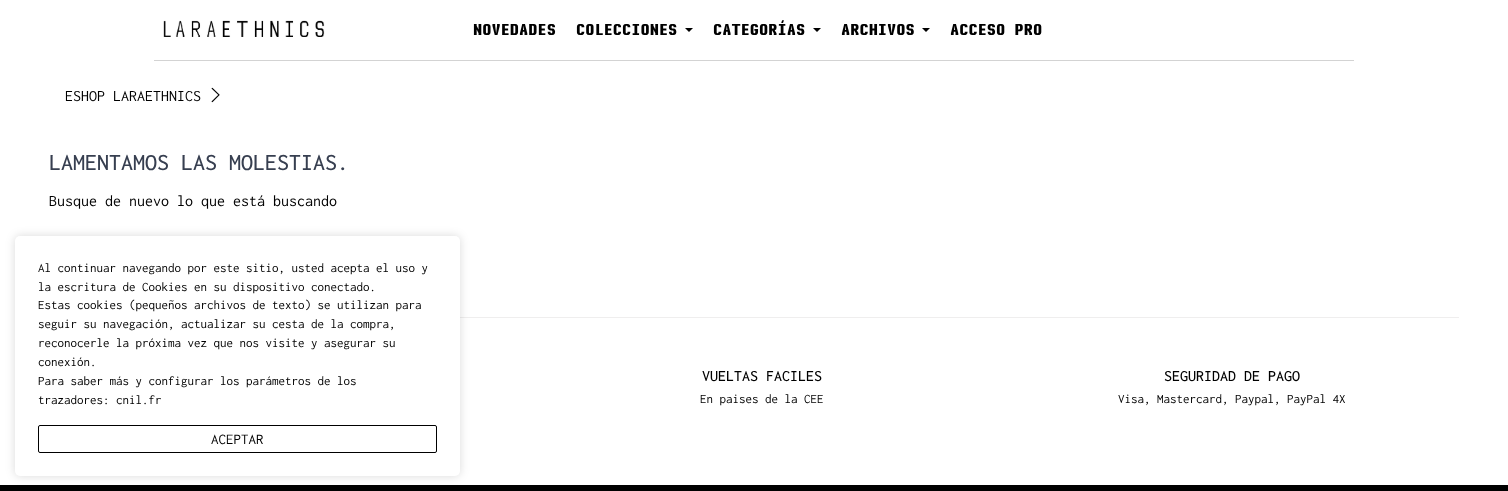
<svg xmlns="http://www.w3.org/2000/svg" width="1508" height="491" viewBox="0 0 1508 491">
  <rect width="100%" height="100%" fill="rgb(255,255,255)"/>
  <image x="163" y="20" width="162" height="17" href="pic1.png"/>
  <rect x="154" y="60" width="1200" height="1" fill="rgb(211,211,211)"/>
  <g font-family="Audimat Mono" font-size="17.5" font-weight="bold" fill="rgb(0,0,0)">
    <text x="473" y="35">NOVEDADES</text>
    <text x="576" y="35">COLECCIONES</text>
  </g>
  <path d="M685 28H693L689 32Z" fill="rgb(0,0,0)"/>
  <text x="713" y="35" font-family="Audimat Mono" font-size="17.5" font-weight="bold" fill="rgb(0,0,0)">CATEGORÍAS</text>
  <path d="M813 28H821L817 32Z" fill="rgb(0,0,0)"/>
  <text x="841" y="35" font-family="Audimat Mono" font-size="17.5" font-weight="bold" fill="rgb(0,0,0)">ARCHIVOS</text>
  <path d="M922 28H930L926 32Z" fill="rgb(0,0,0)"/>
  <text x="950" y="35" font-family="Audimat Mono" font-size="17.5" font-weight="bold" fill="rgb(0,0,0)">ACCESO PRO</text>
  <text x="65" y="101" font-family="Inconsolata" font-size="16" fill="rgb(0,0,0)">ESHOP LARAETHNICS</text>
  <image x="211" y="87" width="9" height="16" href="pic2.png"/>
  <text x="49" y="170" font-family="Inconsolata" font-size="24" font-weight="500" fill="rgb(55,63,80)">LAMENTAMOS LAS MOLESTIAS.</text>
  <text x="49" y="206" font-family="Inconsolata" font-size="16" fill="rgb(0,0,0)">Busque de nuevo lo que está buscando</text>
  <rect x="0" y="485" width="1508" height="6" fill="rgb(0,0,0)"/>
  <rect x="460" y="317" width="999" height="1" fill="rgb(239,238,238)"/>
  <rect x="15" y="236" width="445" height="240" rx="5" fill="rgba(0,0,0,0.15)" filter="blur(5px)"/>
  <rect x="15" y="236" width="445" height="240" rx="5" fill="rgb(255,255,255)"/>
  <g font-family="Inconsolata" font-size="13" fill="rgb(0,0,0)">
    <text>
      <tspan x="38" y="272">Al continuar navegando por este sitio, usted acepta el uso y</tspan>
      <tspan x="38" y="291">la escritura de Cookies en su dispositivo conectado.</tspan>
      <tspan x="38" y="309">Estas cookies (pequeños archivos de texto) se utilizan para</tspan>
      <tspan x="38" y="328">seguir su navegación, actualizar su cesta de la compra,</tspan>
      <tspan x="38" y="347">reconocerle la próxima vez que nos visite y asegurar su</tspan>
      <tspan x="38" y="366">conexión.</tspan>
      <tspan x="38" y="385">Para saber más y configurar los parámetros de los</tspan>
      <tspan x="38" y="404">trazadores: cnil.fr</tspan>
    </text>
  </g>
  <rect x="38.5" y="425.5" width="398" height="27" rx="1.5" fill="none" stroke="rgb(0,0,0)"/>
  <text x="211" y="444" font-family="Inconsolata" font-size="15" fill="rgb(0,0,0)">ACEPTAR</text>
  <text x="702" y="381" font-family="Inconsolata" font-size="16" font-weight="500" fill="rgb(0,0,0)">VUELTAS FACILES</text>
  <text x="700" y="403" font-family="Inconsolata" font-size="13" fill="rgb(0,0,0)">En paises de la CEE</text>
  <text x="1164" y="381" font-family="Inconsolata" font-size="16" font-weight="500" fill="rgb(0,0,0)">SEGURIDAD DE PAGO</text>
  <text x="1118" y="403" font-family="Inconsolata" font-size="13" fill="rgb(0,0,0)">Visa, Mastercard, Paypal, PayPal 4X</text>
</svg>
